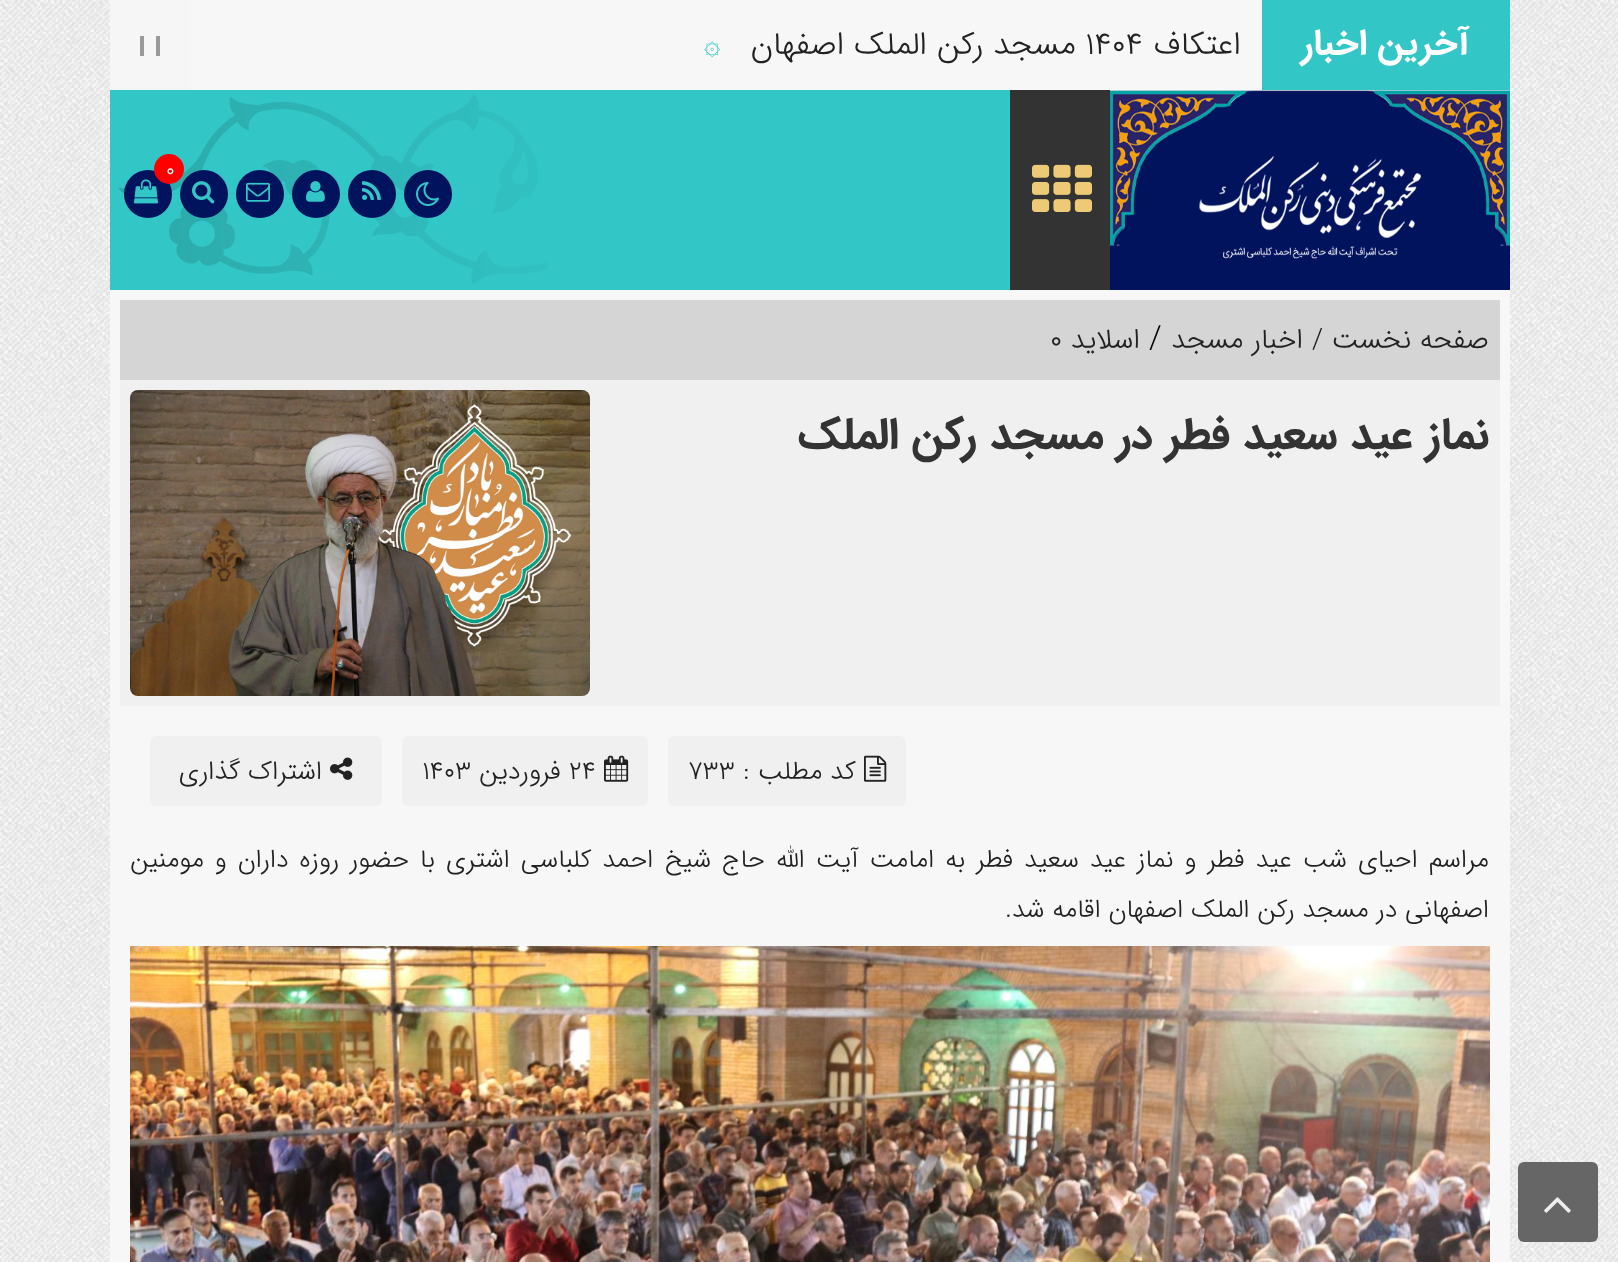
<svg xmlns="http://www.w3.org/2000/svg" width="1618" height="1262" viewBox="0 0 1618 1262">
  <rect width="100%" height="100%" fill="rgb(255,255,255)"/>
  <image x="0" y="0" width="1618" height="1262" href="pic1.png"/>
  <rect x="190" y="0" width="1072" height="90" fill="rgb(247,247,247)"/>
  <rect x="1262" y="0" width="248" height="90" fill="rgb(51,198,199)"/>
  <text x="1469" y="54" font-family="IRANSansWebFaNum" font-size="36" font-weight="bold" direction="rtl" fill="rgb(255,255,255)">آخرین اخبار</text>
  <text x="1241" y="54" font-family="IRANSansWebFaNum" font-size="32" font-weight="300" direction="rtl" fill="rgb(34,34,34)">اعتکاف</text>
  <text x="1085" y="54" font-family="IRANSansWebFaNum" font-size="32" font-weight="300" fill="rgb(34,34,34)">۱۴۰۴</text>
  <text x="1076" y="54" font-family="IRANSansWebFaNum" font-size="32" font-weight="300" direction="rtl" fill="rgb(34,34,34)">مسجد رکن الملک اصفهان</text>
  <text x="704" y="54" font-family="Cascadia Code" font-size="28" fill="rgb(51,198,199)">۞</text>
  <rect x="110" y="0" width="80" height="90" fill="rgb(246,246,246)"/>
  <rect x="156" y="36" width="4" height="20" fill="rgb(153,153,153)"/>
  <rect x="140" y="36" width="4" height="20" fill="rgb(153,153,153)"/>
  <rect x="1110" y="90" width="400" height="200" fill="rgb(2,19,94)"/>
  <image x="1110" y="90" width="400" height="169" href="pic2.png"/>
  <rect x="1010" y="90" width="100" height="200" fill="rgb(51,51,51)"/>
  <image x="1032" y="164" width="60" height="48" href="pic3.png"/>
  <rect x="110" y="90" width="900" height="200" fill="rgb(51,198,199)"/>
  <image x="118" y="94" width="430" height="190" href="pic4.png"/>
  <circle cx="428" cy="194" r="24" fill="rgb(2,19,94)"/>
  <image x="416" y="182" width="23" height="24" href="pic5.png"/>
  <circle cx="372" cy="194" r="24" fill="rgb(2,19,94)"/>
  <image x="362" y="181" width="19" height="19" href="pic6.png"/>
  <circle cx="316" cy="194" r="24" fill="rgb(2,19,94)"/>
  <image x="306" y="181" width="19" height="21" href="pic7.png"/>
  <circle cx="260" cy="194" r="24" fill="rgb(2,19,94)"/>
  <image x="246" y="182" width="24" height="20" href="pic8.png"/>
  <circle cx="204" cy="194" r="24" fill="rgb(2,19,94)"/>
  <image x="192" y="181" width="23" height="23" href="pic9.png"/>
  <circle cx="148" cy="194" r="24" fill="rgb(2,19,94)"/>
  <image x="134" y="179" width="24" height="25" href="pic10.png"/>
  <circle cx="169" cy="169" r="15" fill="rgb(255,0,0)"/>
  <text x="166" y="176" font-family="IRANSansWebFaNum" font-size="20" font-weight="300" fill="rgb(255,255,255)">0</text>
  <rect x="110" y="290" width="1400" height="972" fill="rgb(247,247,247)"/>
  <rect x="120" y="300" width="1380" height="80" fill="rgb(213,213,213)"/>
  <g font-family="IRANSansWebFaNum" font-size="28" font-weight="300" direction="rtl" fill="rgb(34,34,34)">
    <text x="1489" y="348">صفحه نخست /</text>
    <text x="1303" y="348">اخبار مسجد</text>
  </g>
  <text x="1149" y="348" font-family="IRANSansWebFaNum" font-size="32" font-weight="300" fill="rgb(0,0,0)">/</text>
  <text x="1140" y="348" font-family="IRANSansWebFaNum" font-size="28" font-weight="300" direction="rtl" fill="rgb(34,34,34)">اسلاید</text>
  <text x="1050" y="348" font-family="IRANSansWebFaNum" font-size="28" font-weight="300" fill="rgb(34,34,34)">0</text>
  <rect x="120" y="380" width="1380" height="326" fill="rgb(240,240,240)"/>
  <text x="1489" y="448" font-family="IRANSansWebFaNum" font-size="44" font-weight="bold" direction="rtl" fill="rgb(51,51,51)">نماز عید سعید فطر در مسجد رکن الملک</text>
  <image x="130" y="390" width="460" height="306" href="pic11.png"/>
  <rect x="668" y="736" width="238" height="70" rx="6" fill="rgb(240,240,240)"/>
  <image x="864" y="755" width="23" height="27" href="pic12.png"/>
  <text x="856" y="779" font-family="IRANSansWebFaNum" font-size="26" font-weight="300" direction="rtl" fill="rgb(34,34,34)">کد مطلب :</text>
  <text x="688" y="779" font-family="IRANSansWebFaNum" font-size="26" font-weight="300" fill="rgb(34,34,34)">733</text>
  <rect x="402" y="736" width="246" height="70" rx="6" fill="rgb(240,240,240)"/>
  <image x="604" y="755" width="25" height="27" href="pic13.png"/>
  <text x="569" y="779" font-family="IRANSansWebFaNum" font-size="26" font-weight="300" fill="rgb(34,34,34)">24</text>
  <text x="561" y="779" font-family="IRANSansWebFaNum" font-size="26" font-weight="300" direction="rtl" fill="rgb(34,34,34)">فروردین</text>
  <text x="422" y="779" font-family="IRANSansWebFaNum" font-size="26" font-weight="300" fill="rgb(34,34,34)">1403</text>
  <rect x="150" y="736" width="232" height="70" rx="6" fill="rgb(240,240,240)"/>
  <image x="330" y="757" width="23" height="23" href="pic14.png"/>
  <text x="322" y="779" font-family="IRANSansWebFaNum" font-size="26" font-weight="300" direction="rtl" fill="rgb(34,34,34)">اشتراک گذاری</text>
  <g font-family="IRANSansWebFaNum" font-size="25.6" font-weight="300" direction="rtl" fill="rgb(34,34,34)">
    <text>
      <tspan x="1489" y="867" word-spacing="3.2">مراسم احیای شب عید فطر و نماز عید سعید فطر به امامت آیت الله حاج شیخ احمد کلباسی اشتری با حضور روزه داران و مومنین</tspan>
      <tspan x="1489" y="917">اصفهانی در مسجد رکن الملک اصفهان اقامه شد.</tspan>
    </text>
  </g>
  <image x="130" y="946" width="1360" height="316" href="pic15.png"/>
  <rect x="1518" y="1162" width="80" height="80" rx="6" fill="rgb(102,102,102)"/>
  <image x="1544" y="1197" width="27" height="16" href="pic16.png"/>
</svg>
